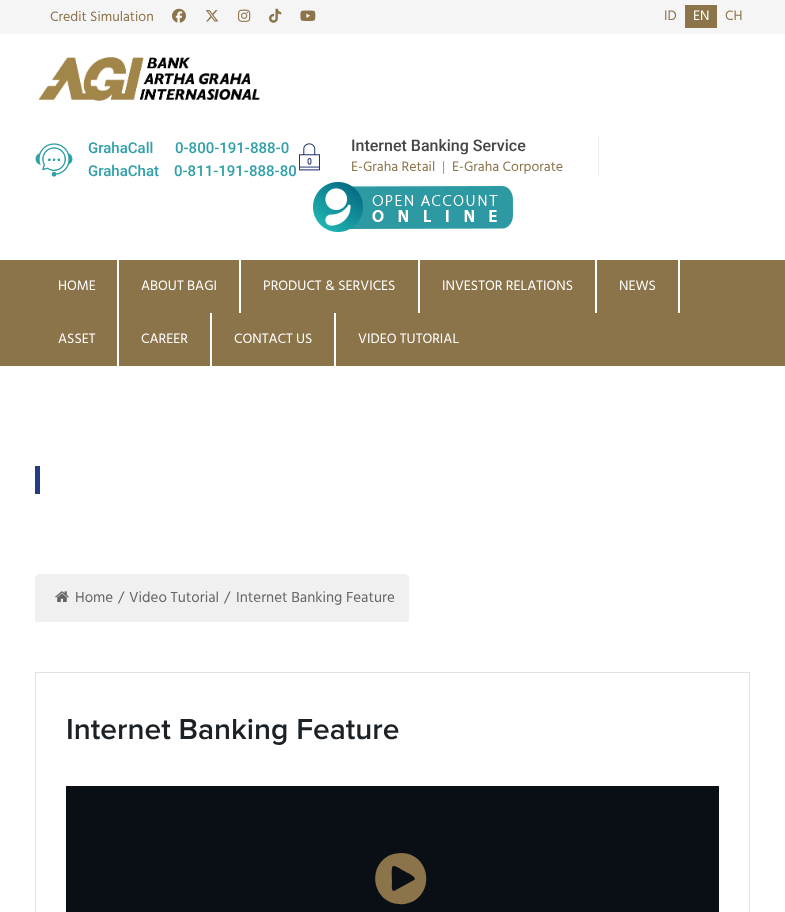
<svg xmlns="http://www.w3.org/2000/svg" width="785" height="912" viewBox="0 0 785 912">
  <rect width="100%" height="100%" fill="rgb(255,255,255)"/>
  <rect x="0" y="0" width="785" height="34" fill="rgb(245,245,245)"/>
  <text x="50" y="21" font-family="Hind" font-size="14" fill="rgb(139,115,74)">Credit Simulation</text>
  <image x="172" y="8" width="14" height="15" href="pic1.png"/>
  <image x="205" y="10" width="14" height="12" href="pic2.png"/>
  <image x="238" y="9" width="13" height="13" href="pic3.png"/>
  <image x="269" y="8" width="13" height="15" href="pic4.png"/>
  <image x="300" y="10" width="16" height="11" href="pic5.png"/>
  <text x="664" y="20" font-family="Hind" font-size="14" fill="rgb(139,115,74)">ID</text>
  <rect x="685" y="5" width="32" height="23" fill="rgb(139,115,74)"/>
  <text x="693" y="20" font-family="Hind" font-size="14" fill="rgb(255,255,255)">EN</text>
  <text x="725" y="20" font-family="Hind" font-size="14" fill="rgb(139,115,74)">CH</text>
  <image x="38" y="57" width="222" height="44" href="pic6.png"/>
  <image x="35" y="143" width="38" height="34" href="pic7.png"/>
  <g font-family="Roboto" font-size="15" font-weight="500" fill="rgb(47,159,168)">
    <text x="88" y="153">GrahaCall</text>
    <text x="175" y="153">0-800-191-888-0</text>
    <text x="88" y="176">GrahaChat</text>
    <text x="174" y="176">0-811-191-888-80</text>
  </g>
  <image x="299" y="143" width="21" height="28" href="pic8.png"/>
  <text x="351" y="151" font-family="Roboto" font-size="16" font-weight="500" fill="rgb(71,70,70)">Internet Banking Service</text>
  <rect x="598" y="136" width="1" height="40" fill="rgb(238,238,238)"/>
  <text x="351" y="171" font-family="Hind" font-size="14" fill="rgb(139,115,74)">E-Graha Retail</text>
  <text x="442" y="171" font-family="Hind" font-size="14" fill="rgb(146,146,146)">|</text>
  <text x="452" y="171" font-family="Hind" font-size="14" fill="rgb(139,115,74)">E-Graha Corporate</text>
  <image x="313" y="182" width="200" height="50" href="pic9.png"/>
  <rect x="0" y="260" width="785" height="106" fill="rgb(139,115,74)"/>
  <text x="58" y="290" font-family="Hind" font-size="14" fill="rgb(255,255,255)">HOME</text>
  <rect x="117" y="260" width="2" height="53" fill="rgb(255,255,255)"/>
  <text x="141" y="290" font-family="Hind" font-size="14" fill="rgb(255,255,255)">ABOUT BAGI</text>
  <rect x="239" y="260" width="2" height="53" fill="rgb(255,255,255)"/>
  <text x="263" y="290" font-family="Hind" font-size="14" fill="rgb(255,255,255)">PRODUCT &amp; SERVICES</text>
  <rect x="418" y="260" width="2" height="53" fill="rgb(255,255,255)"/>
  <text x="442" y="290" font-family="Hind" font-size="14" fill="rgb(255,255,255)">INVESTOR RELATIONS</text>
  <rect x="595" y="260" width="2" height="53" fill="rgb(255,255,255)"/>
  <text x="619" y="290" font-family="Hind" font-size="14" fill="rgb(255,255,255)">NEWS</text>
  <rect x="678" y="260" width="2" height="53" fill="rgb(255,255,255)"/>
  <text x="58" y="343" font-family="Hind" font-size="14" fill="rgb(255,255,255)">ASSET</text>
  <rect x="117" y="313" width="2" height="53" fill="rgb(255,255,255)"/>
  <text x="141" y="343" font-family="Hind" font-size="14" fill="rgb(255,255,255)">CAREER</text>
  <rect x="210" y="313" width="2" height="53" fill="rgb(255,255,255)"/>
  <text x="234" y="343" font-family="Hind" font-size="14" fill="rgb(255,255,255)">CONTACT US</text>
  <rect x="334" y="313" width="2" height="53" fill="rgb(255,255,255)"/>
  <text x="358" y="343" font-family="Hind" font-size="14" fill="rgb(255,255,255)">VIDEO TUTORIAL</text>
  <rect x="35" y="466" width="5" height="28" fill="rgb(36,60,131)"/>
  <path d="M40 574H404C407 574 409 576 409 579V622H35V579C35 576 37 574 40 574Z" fill="rgb(240,240,240)"/>
  <image x="55" y="591" width="14" height="11" href="pic10.png"/>
  <g font-family="Hind" font-size="15" fill="rgb(101,101,101)">
    <text x="75" y="602">Home</text>
    <text x="118" y="602">/</text>
    <text x="129" y="602">Video Tutorial</text>
    <text x="224" y="602">/</text>
    <text x="236" y="602">Internet Banking Feature</text>
  </g>
  <rect x="35.5" y="672.5" width="714" height="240" fill="none" stroke="rgb(225,225,225)"/>
  <text x="66" y="739" font-family="Proxima Nova" font-size="30" font-weight="600" fill="rgb(28,33,37)">Internet Banking Feature</text>
  <rect x="66" y="786" width="653" height="126" fill="rgb(9,15,20)"/>
  <path d="M388 856C392 854 397 853 402 853C428 854 435 888 414 901C409 903 404 905 399 904C374 903 366 869 388 856ZM414 880C418 878 408 873 408 873C405 872 396 865 393 866C391 867 392 879 392 882C392 884 391 891 394 891Z" fill="rgb(139,115,74)"/>
</svg>
